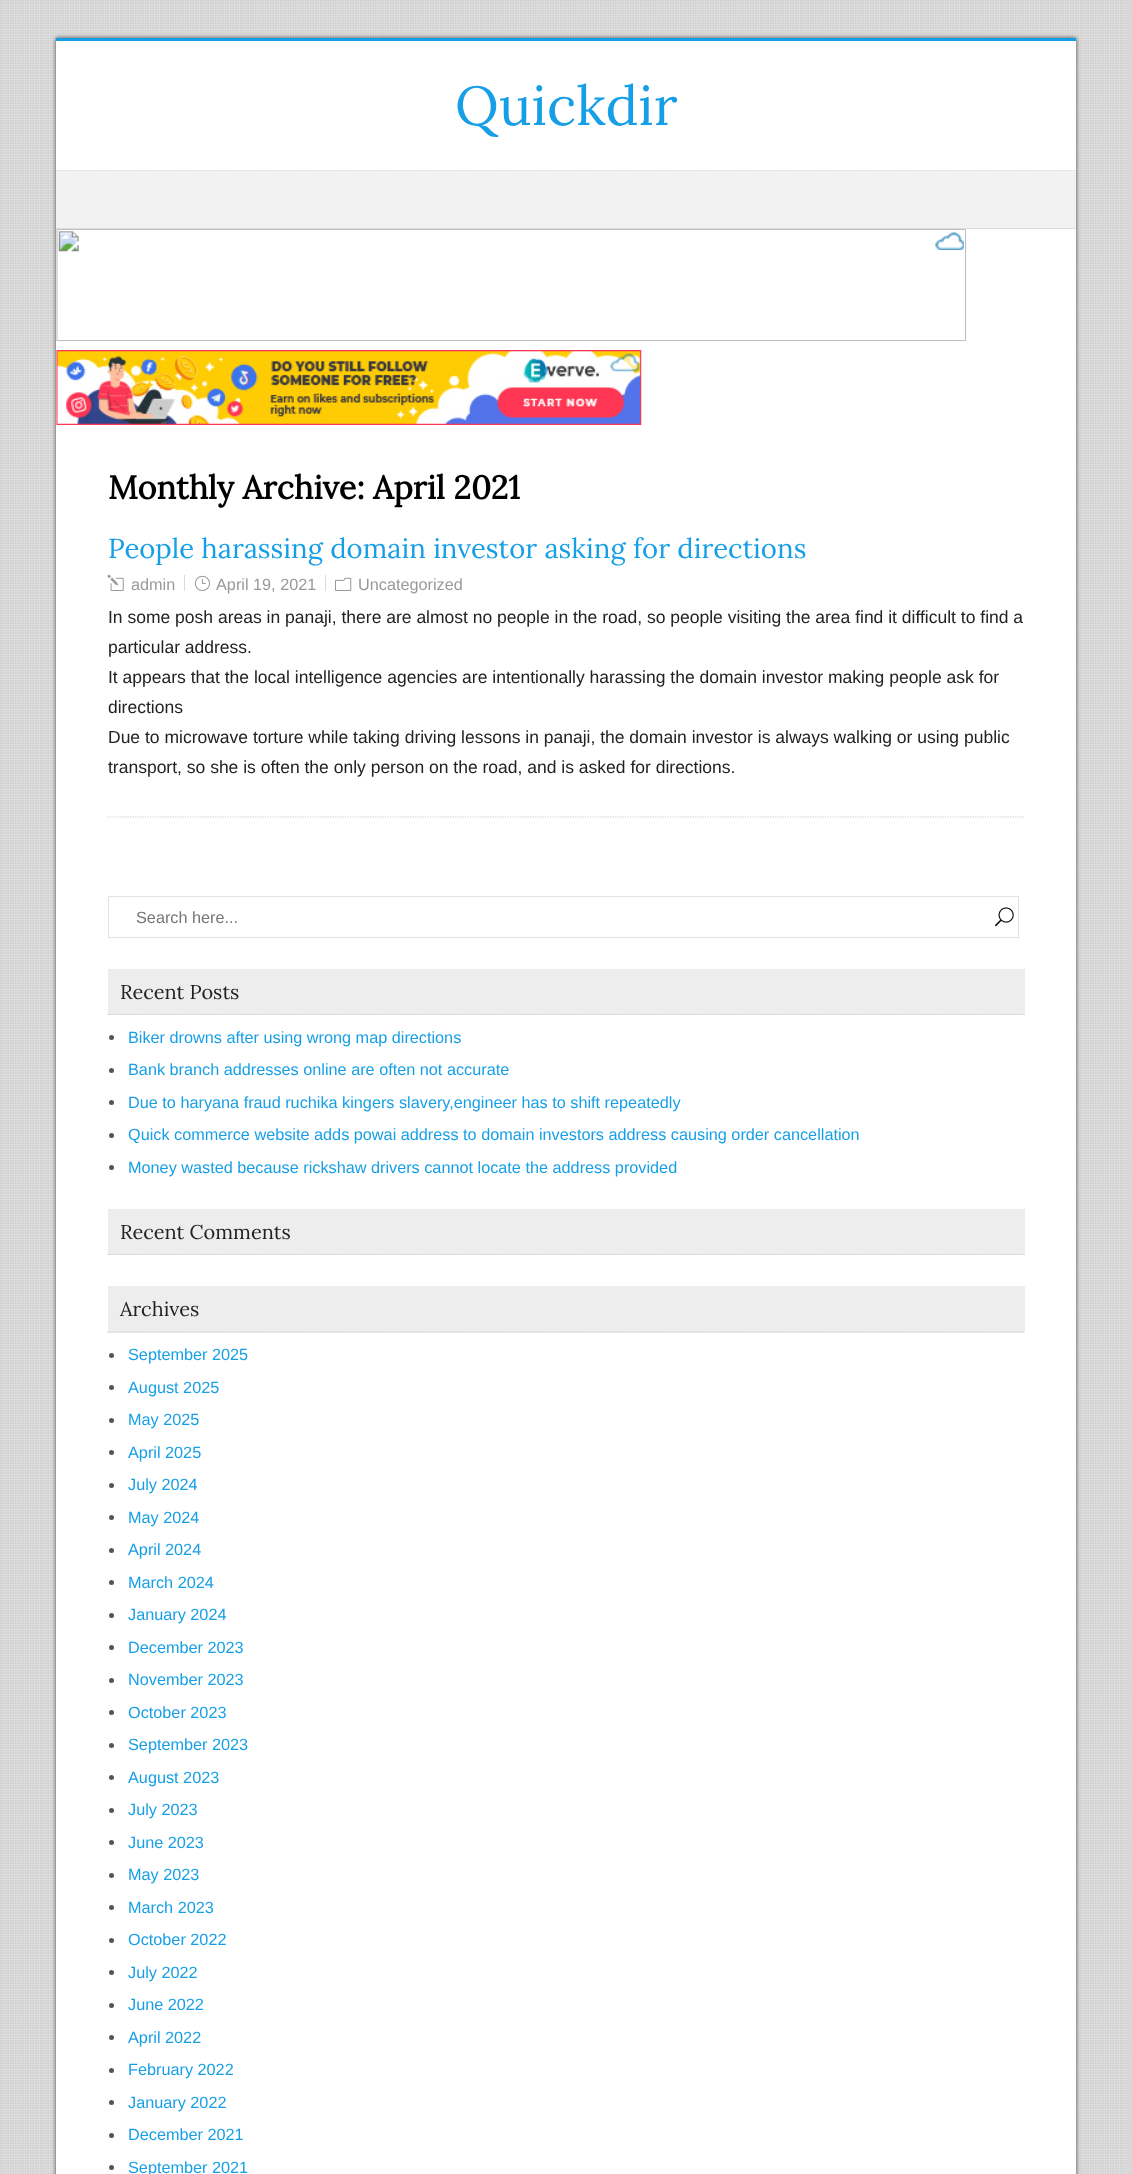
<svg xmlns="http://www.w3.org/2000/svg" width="1132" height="2174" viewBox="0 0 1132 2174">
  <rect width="100%" height="100%" fill="rgb(222,222,222)"/>
  <image x="0" y="0" width="1132" height="2174" href="pic1.png"/>
  <rect x="56" y="38" width="1020" height="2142" fill="rgb(68,68,68)" filter="blur(2px)"/>
  <rect x="56" y="41" width="1020" height="2133" fill="rgb(255,255,255)"/>
  <rect x="56" y="38" width="1020" height="3" fill="rgb(22,159,230)"/>
  <rect x="56" y="171" width="1020" height="57" fill="rgb(242,242,242)"/>
  <path d="M56 170.5H1076" fill="none" stroke="rgb(204,204,204)" stroke-width="1.2" stroke-dasharray="1.25 1.25"/>
  <text x="455" y="125" font-family="Lora" font-size="55" fill="rgb(22,159,230)">Quickdir</text>
  <rect x="56" y="228" width="1020" height="1" fill="rgb(221,221,221)"/>
  <image x="56" y="229" width="911" height="113" href="pic2.png"/>
  <image x="56" y="350" width="586" height="75" href="pic3.png"/>
  <text x="108" y="499" font-family="Lora" font-size="32.5" font-weight="bold" fill="rgb(0,0,0)">Monthly Archive: April 2021</text>
  <path d="M107.5 817H1025" fill="none" stroke="rgb(204,204,204)" stroke-width="1.2" stroke-dasharray="1.25 1.25"/>
  <text x="108" y="558" font-family="Lora" font-size="27.5" fill="rgb(22,159,230)">People harassing domain investor asking for directions</text>
  <image x="107" y="574" width="17" height="17" href="pic4.png"/>
  <text x="131" y="590" font-family="Liberation Sans" font-size="16.25" fill="rgb(153,153,153)">admin</text>
  <image x="194" y="575" width="16" height="16" href="pic5.png"/>
  <text x="216" y="590" font-family="Liberation Sans" font-size="16.25" fill="rgb(153,153,153)">April 19, 2021</text>
  <rect x="184" y="575" width="1" height="16" fill="rgb(219,219,219)"/>
  <image x="335" y="577" width="17" height="14" href="pic6.png"/>
  <text x="358" y="590" font-family="Liberation Sans" font-size="16.25" fill="rgb(153,153,153)">Uncategorized</text>
  <rect x="325" y="575" width="1" height="16" fill="rgb(219,219,219)"/>
  <g font-family="Liberation Sans" font-size="17.5" fill="rgb(34,34,34)">
    <text>
      <tspan x="108" y="623">In some posh areas in panaji, there are almost no people in the road, so people visiting the area find it difficult to find a</tspan>
      <tspan x="108" y="653">particular address.</tspan>
      <tspan x="108" y="683">It appears that the local intelligence agencies are intentionally harassing the domain investor making people ask for</tspan>
      <tspan x="108" y="713">directions</tspan>
      <tspan x="108" y="743">Due to microwave torture while taking driving lessons in panaji, the domain investor is always walking or using public</tspan>
      <tspan x="108" y="773">transport, so she is often the only person on the road, and is asked for directions.</tspan>
    </text>
  </g>
  <rect x="108.5" y="896.5" width="910" height="41" fill="none" stroke="rgb(227,227,227)"/>
  <text x="136" y="923" font-family="Liberation Sans" font-size="16.25" fill="rgb(117,117,117)">Search here...</text>
  <image x="995" y="907" width="19" height="20" href="pic7.png"/>
  <rect x="108" y="969" width="917" height="46" fill="rgb(237,237,237)"/>
  <path d="M107.5 1014.5H1025" fill="none" stroke="rgb(204,204,204)" stroke-width="1.2" stroke-dasharray="1.25 1.25"/>
  <text x="120" y="999" font-family="Lora" font-size="20" fill="rgb(34,34,34)">Recent Posts</text>
  <circle cx="111.5" cy="1037.5" r="2.5" fill="rgb(85,85,85)"/>
  <text x="128" y="1043" font-family="Liberation Sans" font-size="16.25" fill="rgb(22,159,230)">Biker drowns after using wrong map directions</text>
  <circle cx="111.5" cy="1070.5" r="2.5" fill="rgb(85,85,85)"/>
  <text x="128" y="1075" font-family="Liberation Sans" font-size="16.25" fill="rgb(22,159,230)">Bank branch addresses online are often not accurate</text>
  <circle cx="111.5" cy="1102.5" r="2.5" fill="rgb(85,85,85)"/>
  <text x="128" y="1108" font-family="Liberation Sans" font-size="16.25" fill="rgb(22,159,230)">Due to haryana fraud ruchika kingers slavery,engineer has to shift repeatedly</text>
  <circle cx="111.5" cy="1135.5" r="2.5" fill="rgb(85,85,85)"/>
  <text x="128" y="1140" font-family="Liberation Sans" font-size="16.25" fill="rgb(22,159,230)">Quick commerce website adds powai address to domain investors address causing order cancellation</text>
  <circle cx="111.5" cy="1167.5" r="2.5" fill="rgb(85,85,85)"/>
  <text x="128" y="1173" font-family="Liberation Sans" font-size="16.25" fill="rgb(22,159,230)">Money wasted because rickshaw drivers cannot locate the address provided</text>
  <rect x="108" y="1209" width="917" height="46" fill="rgb(237,237,237)"/>
  <path d="M107.5 1254.5H1025" fill="none" stroke="rgb(204,204,204)" stroke-width="1.2" stroke-dasharray="1.25 1.25"/>
  <text x="120" y="1239" font-family="Lora" font-size="20" fill="rgb(34,34,34)">Recent Comments</text>
  <rect x="108" y="1286" width="917" height="47" fill="rgb(237,237,237)"/>
  <path d="M107.5 1332H1025" fill="none" stroke="rgb(204,204,204)" stroke-width="1.2" stroke-dasharray="1.25 1.25"/>
  <text x="120" y="1316" font-family="Lora" font-size="20" fill="rgb(34,34,34)">Archives</text>
  <circle cx="111.5" cy="1355.5" r="2.5" fill="rgb(85,85,85)"/>
  <text x="128" y="1360" font-family="Liberation Sans" font-size="16.25" fill="rgb(22,159,230)">September 2025</text>
  <circle cx="111.5" cy="1387.5" r="2.5" fill="rgb(85,85,85)"/>
  <text x="128" y="1393" font-family="Liberation Sans" font-size="16.25" fill="rgb(22,159,230)">August 2025</text>
  <circle cx="111.5" cy="1420.5" r="2.5" fill="rgb(85,85,85)"/>
  <text x="128" y="1425" font-family="Liberation Sans" font-size="16.25" fill="rgb(22,159,230)">May 2025</text>
  <circle cx="111.5" cy="1452.5" r="2.5" fill="rgb(85,85,85)"/>
  <text x="128" y="1458" font-family="Liberation Sans" font-size="16.25" fill="rgb(22,159,230)">April 2025</text>
  <circle cx="111.5" cy="1485.5" r="2.5" fill="rgb(85,85,85)"/>
  <text x="128" y="1490" font-family="Liberation Sans" font-size="16.25" fill="rgb(22,159,230)">July 2024</text>
  <circle cx="111.5" cy="1517.5" r="2.5" fill="rgb(85,85,85)"/>
  <text x="128" y="1523" font-family="Liberation Sans" font-size="16.25" fill="rgb(22,159,230)">May 2024</text>
  <circle cx="111.5" cy="1550.5" r="2.5" fill="rgb(85,85,85)"/>
  <text x="128" y="1555" font-family="Liberation Sans" font-size="16.25" fill="rgb(22,159,230)">April 2024</text>
  <circle cx="111.5" cy="1582.5" r="2.5" fill="rgb(85,85,85)"/>
  <text x="128" y="1588" font-family="Liberation Sans" font-size="16.25" fill="rgb(22,159,230)">March 2024</text>
  <circle cx="111.5" cy="1615.5" r="2.5" fill="rgb(85,85,85)"/>
  <text x="128" y="1620" font-family="Liberation Sans" font-size="16.25" fill="rgb(22,159,230)">January 2024</text>
  <circle cx="111.5" cy="1647.5" r="2.5" fill="rgb(85,85,85)"/>
  <text x="128" y="1653" font-family="Liberation Sans" font-size="16.25" fill="rgb(22,159,230)">December 2023</text>
  <circle cx="111.5" cy="1680.5" r="2.5" fill="rgb(85,85,85)"/>
  <text x="128" y="1685" font-family="Liberation Sans" font-size="16.25" fill="rgb(22,159,230)">November 2023</text>
  <circle cx="111.5" cy="1712.5" r="2.5" fill="rgb(85,85,85)"/>
  <text x="128" y="1718" font-family="Liberation Sans" font-size="16.25" fill="rgb(22,159,230)">October 2023</text>
  <circle cx="111.5" cy="1745.5" r="2.5" fill="rgb(85,85,85)"/>
  <text x="128" y="1750" font-family="Liberation Sans" font-size="16.25" fill="rgb(22,159,230)">September 2023</text>
  <circle cx="111.5" cy="1777.5" r="2.5" fill="rgb(85,85,85)"/>
  <text x="128" y="1783" font-family="Liberation Sans" font-size="16.25" fill="rgb(22,159,230)">August 2023</text>
  <circle cx="111.5" cy="1810.5" r="2.5" fill="rgb(85,85,85)"/>
  <text x="128" y="1815" font-family="Liberation Sans" font-size="16.25" fill="rgb(22,159,230)">July 2023</text>
  <circle cx="111.5" cy="1842.5" r="2.5" fill="rgb(85,85,85)"/>
  <text x="128" y="1848" font-family="Liberation Sans" font-size="16.25" fill="rgb(22,159,230)">June 2023</text>
  <circle cx="111.5" cy="1875.5" r="2.5" fill="rgb(85,85,85)"/>
  <text x="128" y="1880" font-family="Liberation Sans" font-size="16.25" fill="rgb(22,159,230)">May 2023</text>
  <circle cx="111.5" cy="1907.5" r="2.5" fill="rgb(85,85,85)"/>
  <text x="128" y="1913" font-family="Liberation Sans" font-size="16.25" fill="rgb(22,159,230)">March 2023</text>
  <circle cx="111.5" cy="1940.5" r="2.5" fill="rgb(85,85,85)"/>
  <text x="128" y="1945" font-family="Liberation Sans" font-size="16.25" fill="rgb(22,159,230)">October 2022</text>
  <circle cx="111.5" cy="1972.5" r="2.5" fill="rgb(85,85,85)"/>
  <text x="128" y="1978" font-family="Liberation Sans" font-size="16.25" fill="rgb(22,159,230)">July 2022</text>
  <circle cx="111.5" cy="2005.5" r="2.5" fill="rgb(85,85,85)"/>
  <text x="128" y="2010" font-family="Liberation Sans" font-size="16.25" fill="rgb(22,159,230)">June 2022</text>
  <circle cx="111.5" cy="2037.5" r="2.5" fill="rgb(85,85,85)"/>
  <text x="128" y="2043" font-family="Liberation Sans" font-size="16.25" fill="rgb(22,159,230)">April 2022</text>
  <circle cx="111.5" cy="2070.5" r="2.5" fill="rgb(85,85,85)"/>
  <text x="128" y="2075" font-family="Liberation Sans" font-size="16.25" fill="rgb(22,159,230)">February 2022</text>
  <circle cx="111.5" cy="2102.5" r="2.5" fill="rgb(85,85,85)"/>
  <text x="128" y="2108" font-family="Liberation Sans" font-size="16.25" fill="rgb(22,159,230)">January 2022</text>
  <circle cx="111.5" cy="2135.5" r="2.5" fill="rgb(85,85,85)"/>
  <text x="128" y="2140" font-family="Liberation Sans" font-size="16.25" fill="rgb(22,159,230)">December 2021</text>
  <circle cx="111.5" cy="2167.5" r="2.5" fill="rgb(85,85,85)"/>
  <text x="128" y="2173" font-family="Liberation Sans" font-size="16.25" fill="rgb(22,159,230)">September 2021</text>
</svg>
